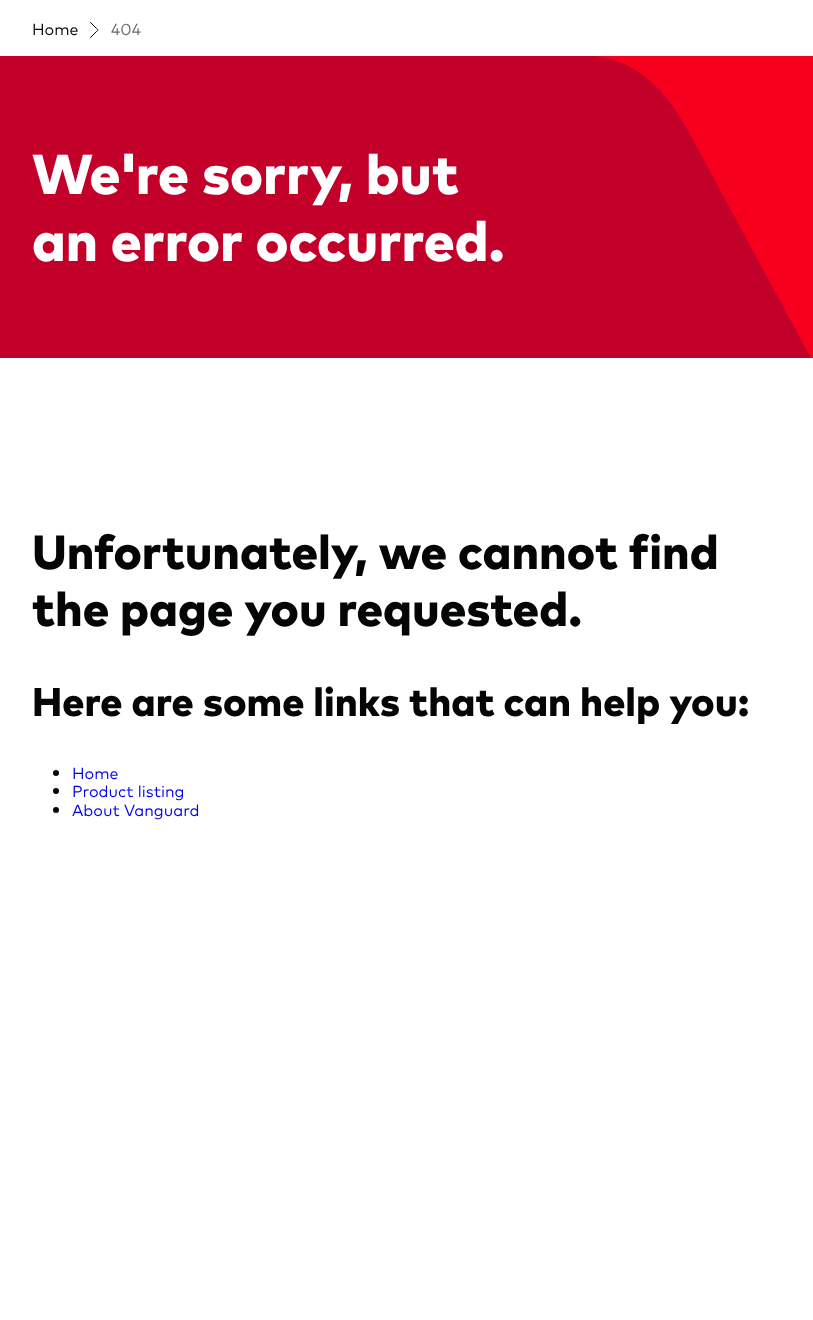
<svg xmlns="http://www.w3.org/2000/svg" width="813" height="1320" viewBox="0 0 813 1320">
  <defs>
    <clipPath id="clip1"><rect x="577" y="56" width="236" height="302"/></clipPath>
  </defs>
  <rect width="100%" height="100%" fill="rgb(255,255,255)"/>
  <text x="32" y="35" font-family="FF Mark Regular" font-size="16" fill="rgb(4,5,5)">Home</text>
  <path d="M90.5 22.5L96.5 28.5C98.5 30 98.5 30 96.5 31.5L90.5 37.5" fill="none" stroke="rgb(4,5,5)" stroke-linecap="round" stroke-linejoin="round"/>
  <text x="111" y="35" font-family="FF Mark Regular" font-size="16" fill="rgb(108,108,108)">404</text>
  <rect x="595" y="56" width="218" height="302" fill="rgb(246,0,30)"/>
  <rect x="0" y="56" width="577" height="302" fill="rgb(194,0,41)"/>
  <g clip-path="url(#clip1)">
    <path d="M577 776V56H595C644 62 670 97 692 138L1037 776Z" fill="rgb(194,0,41)"/>
  </g>
  <g font-family="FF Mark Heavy" font-size="56" font-weight="900" fill="rgb(255,255,255)">
    <text>
      <tspan x="32" y="194">We're sorry, but</tspan>
      <tspan x="32" y="261">an error occurred.</tspan>
    </text>
  </g>
  <g font-family="FF Mark Heavy" font-size="48" font-weight="900" fill="rgb(4,5,5)">
    <text>
      <tspan x="32" y="569">Unfortunately, we cannot find</tspan>
      <tspan x="32" y="626">the page you requested.</tspan>
    </text>
  </g>
  <text x="32" y="716" font-family="FF Mark Heavy" font-size="40" font-weight="900" fill="rgb(4,5,5)">Here are some links that can help you:</text>
  <circle cx="56" cy="773" r="3" fill="rgb(4,5,5)"/>
  <text x="72" y="779" font-family="FF Mark Regular" font-size="16" fill="rgb(0,0,238)">Home</text>
  <circle cx="56" cy="791" r="3" fill="rgb(4,5,5)"/>
  <text x="72" y="797" font-family="FF Mark Regular" font-size="16" fill="rgb(0,0,238)">Product listing</text>
  <circle cx="56" cy="810" r="3" fill="rgb(4,5,5)"/>
  <text x="72" y="816" font-family="FF Mark Regular" font-size="16" fill="rgb(0,0,238)">About Vanguard</text>
</svg>
